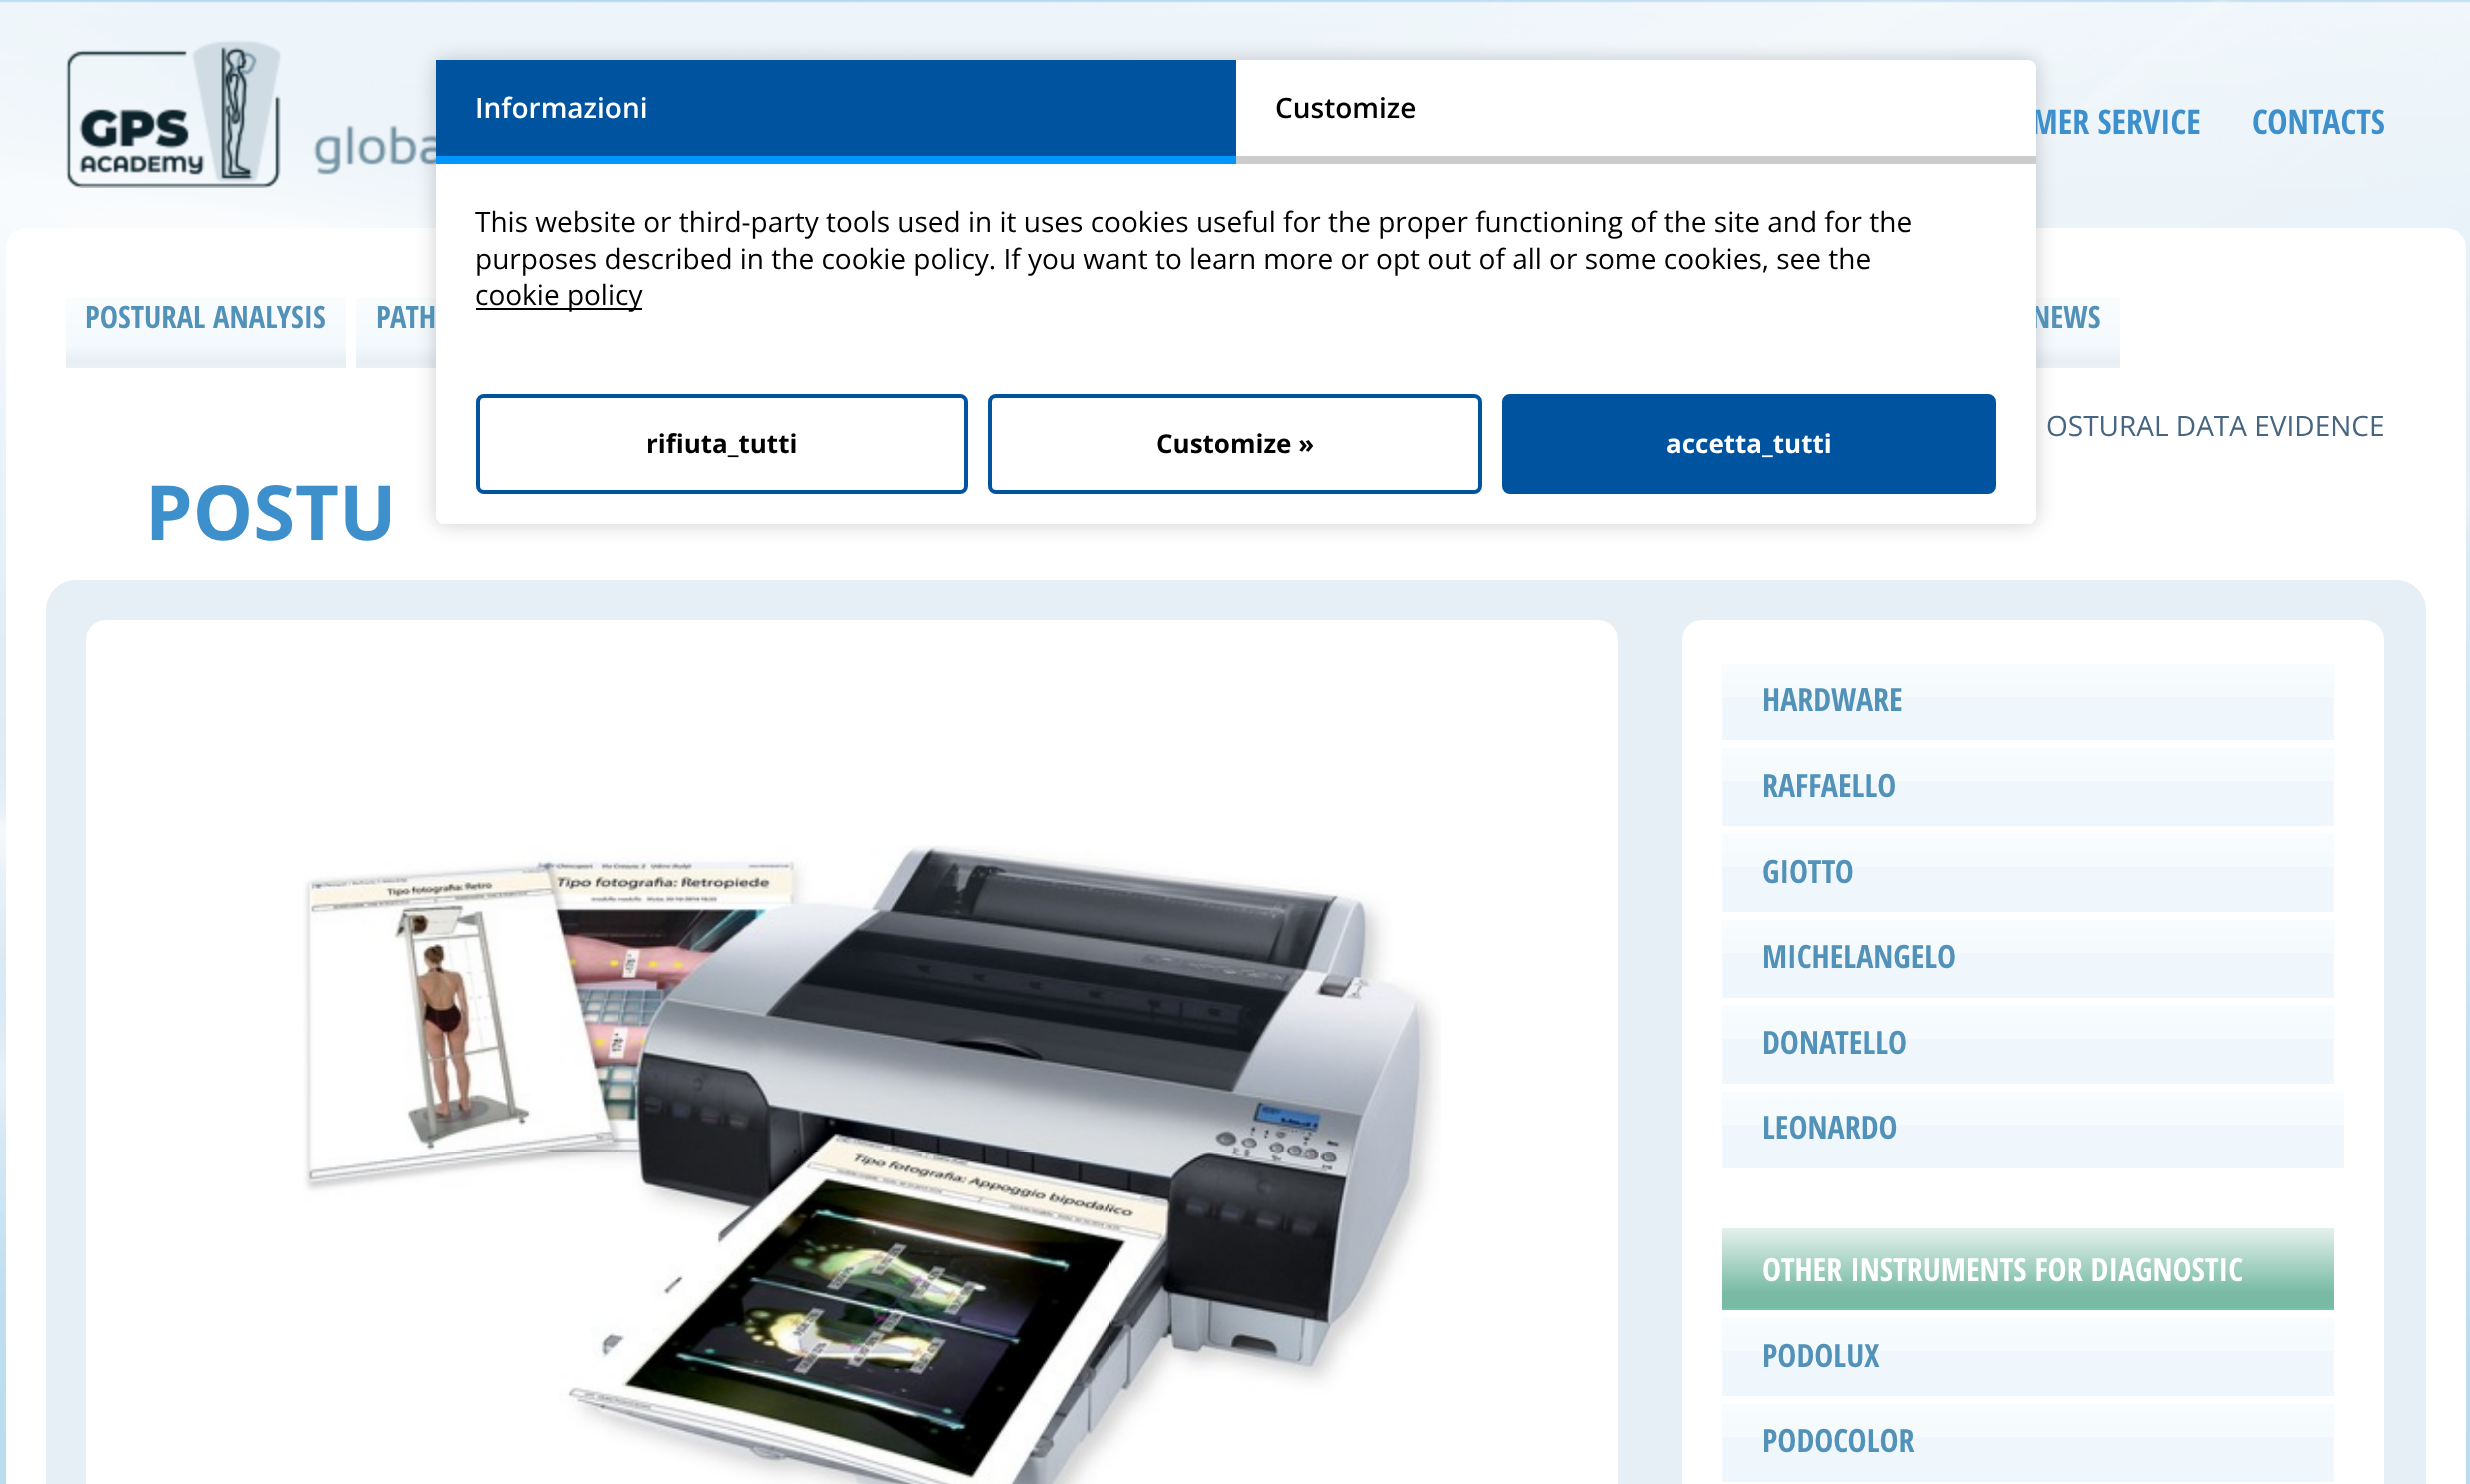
<svg xmlns="http://www.w3.org/2000/svg" width="2470" height="1484" viewBox="0 0 2470 1484">
  <rect width="100%" height="100%" fill="rgb(255,255,255)"/>
  <image x="0" y="0" width="2470" height="1484" href="pic1.png"/>
  <image x="66" y="40" width="370" height="148" href="pic2.png"/>
  <rect x="6" y="228" width="2460" height="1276" rx="20" fill="rgb(255,255,255)"/>
  <image x="356" y="298" width="80" height="70" href="pic4.png"/>
  <image x="2036" y="298" width="84" height="70" href="pic5.png"/>
  <rect x="436" y="60" width="1600" height="464" rx="8" fill="rgba(0,0,0,0.2)" filter="blur(10px)"/>
  <text x="2031" y="134" font-family="Open Sans Condensed" font-size="34" font-weight="bold" fill="rgb(61,144,203)">MER SERVICE</text>
  <text x="2031" y="328" font-family="Open Sans Condensed" font-size="30.75" font-weight="bold" fill="rgb(82,145,184)">NEWS</text>
  <rect x="436" y="60" width="1600" height="464" rx="8" fill="rgb(255,255,255)"/>
  <rect x="436" y="60" width="800" height="96" fill="rgb(0,84,159)"/>
  <rect x="436" y="156" width="800" height="8" fill="rgb(0,149,255)"/>
  <text x="475" y="118" font-family="Open Sans" font-size="28" font-weight="600" fill="rgb(255,255,255)">Informazioni</text>
  <rect x="1236" y="156" width="800" height="8" fill="rgb(204,204,204)"/>
  <text x="1275" y="118" font-family="Open Sans" font-size="28" font-weight="600" fill="rgb(0,0,0)">Customize</text>
  <g font-family="Open Sans" font-size="28" fill="rgb(0,0,0)">
    <text>
      <tspan x="475" y="232">This website or third-party tools used in it uses cookies useful for the proper functioning of the site and for the</tspan>
      <tspan x="475" y="269">purposes described in the cookie policy. If you want to learn more or opt out of all or some cookies, see the</tspan>
    </text>
  </g>
  <rect x="476" y="308" width="166" height="2" fill="rgb(0,0,0)"/>
  <text x="475" y="305" font-family="Open Sans" font-size="28" fill="rgb(0,0,0)">cookie policy</text>
  <rect x="478" y="396" width="488" height="96" rx="6" fill="none" stroke="rgb(0,84,159)" stroke-width="4"/>
  <text x="646" y="453" font-family="Open Sans" font-size="26" font-weight="bold" fill="rgb(0,0,0)">rifiuta_tutti</text>
  <rect x="990" y="396" width="490" height="96" rx="6" fill="none" stroke="rgb(0,84,159)" stroke-width="4"/>
  <text x="1156" y="453" font-family="Open Sans" font-size="26" font-weight="bold" fill="rgb(0,0,0)">Customize »</text>
  <rect x="1504" y="396" width="490" height="96" rx="6" fill="rgb(0,84,159)" stroke="rgb(0,84,159)" stroke-width="4"/>
  <text x="1666" y="453" font-family="Open Sans" font-size="26" font-weight="bold" fill="rgb(255,255,255)">accetta_tutti</text>
  <text x="2252" y="134" font-family="Open Sans Condensed" font-size="34" font-weight="bold" fill="rgb(61,144,203)">CONTACTS</text>
  <image x="66" y="298" width="280" height="70" href="pic3.png"/>
  <g font-family="Open Sans Condensed" font-size="30.75" font-weight="bold" fill="rgb(82,145,184)">
    <text x="85" y="328">POSTURAL ANALYSIS</text>
    <text x="376" y="328">PATH</text>
  </g>
  <text x="2046" y="436" font-family="Open Sans" font-size="28" fill="rgb(70,101,128)">OSTURAL DATA EVIDENCE</text>
  <text x="145" y="540" font-family="Open Sans" font-size="76" font-weight="bold" fill="rgb(61,144,203)">POSTU</text>
  <rect x="46" y="580" width="2380" height="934" rx="30" fill="rgb(231,239,246)"/>
  <rect x="86" y="620" width="1532" height="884" rx="20" fill="rgb(255,255,255)"/>
  <image x="303" y="845" width="1138" height="639" href="pic6.png"/>
  <rect x="1682" y="620" width="702" height="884" rx="20" fill="rgb(255,255,255)"/>
  <rect x="1722" y="697" width="612" height="43" fill="rgb(240,247,252)"/>
  <image x="1722" y="660" width="612" height="37" href="pic7.png"/>
  <text x="1762" y="711" font-family="Open Sans Condensed" font-size="32" font-weight="bold" fill="rgb(82,145,184)">HARDWARE</text>
  <rect x="1722" y="781" width="612" height="45" fill="rgb(240,247,252)"/>
  <image x="1722" y="744" width="612" height="37" href="pic7.png"/>
  <text x="1762" y="797" font-family="Open Sans Condensed" font-size="32" font-weight="bold" fill="rgb(82,145,184)">RAFFAELLO</text>
  <rect x="1722" y="867" width="612" height="45" fill="rgb(240,247,252)"/>
  <image x="1722" y="830" width="612" height="37" href="pic7.png"/>
  <text x="1762" y="883" font-family="Open Sans Condensed" font-size="32" font-weight="bold" fill="rgb(82,145,184)">GIOTTO</text>
  <rect x="1722" y="953" width="612" height="45" fill="rgb(240,247,252)"/>
  <image x="1722" y="916" width="612" height="37" href="pic7.png"/>
  <text x="1762" y="968" font-family="Open Sans Condensed" font-size="32" font-weight="bold" fill="rgb(82,145,184)">MICHELANGELO</text>
  <rect x="1722" y="1039" width="612" height="45" fill="rgb(240,247,252)"/>
  <image x="1722" y="1002" width="612" height="37" href="pic7.png"/>
  <text x="1762" y="1054" font-family="Open Sans Condensed" font-size="32" font-weight="bold" fill="rgb(82,145,184)">DONATELLO</text>
  <rect x="1722" y="1125" width="622" height="43" fill="rgb(240,247,252)"/>
  <image x="1722" y="1088" width="622" height="37" href="pic8.png"/>
  <text x="1762" y="1139" font-family="Open Sans Condensed" font-size="32" font-weight="bold" fill="rgb(82,145,184)">LEONARDO</text>
  <rect x="1722" y="1308" width="612" height="2" fill="rgb(114,198,174)"/>
  <image x="1722" y="1228" width="612" height="80" href="pic9.png"/>
  <text x="1762" y="1281" font-family="Open Sans Condensed" font-size="32" font-weight="bold" fill="rgb(255,255,255)">OTHER INSTRUMENTS FOR DIAGNOSTIC</text>
  <rect x="1722" y="1351" width="612" height="45" fill="rgb(240,247,252)"/>
  <image x="1722" y="1314" width="612" height="37" href="pic7.png"/>
  <text x="1762" y="1367" font-family="Open Sans Condensed" font-size="32" font-weight="bold" fill="rgb(82,145,184)">PODOLUX</text>
  <rect x="1722" y="1437" width="612" height="45" fill="rgb(240,247,252)"/>
  <image x="1722" y="1400" width="612" height="37" href="pic7.png"/>
  <text x="1762" y="1452" font-family="Open Sans Condensed" font-size="32" font-weight="bold" fill="rgb(82,145,184)">PODOCOLOR</text>
</svg>
